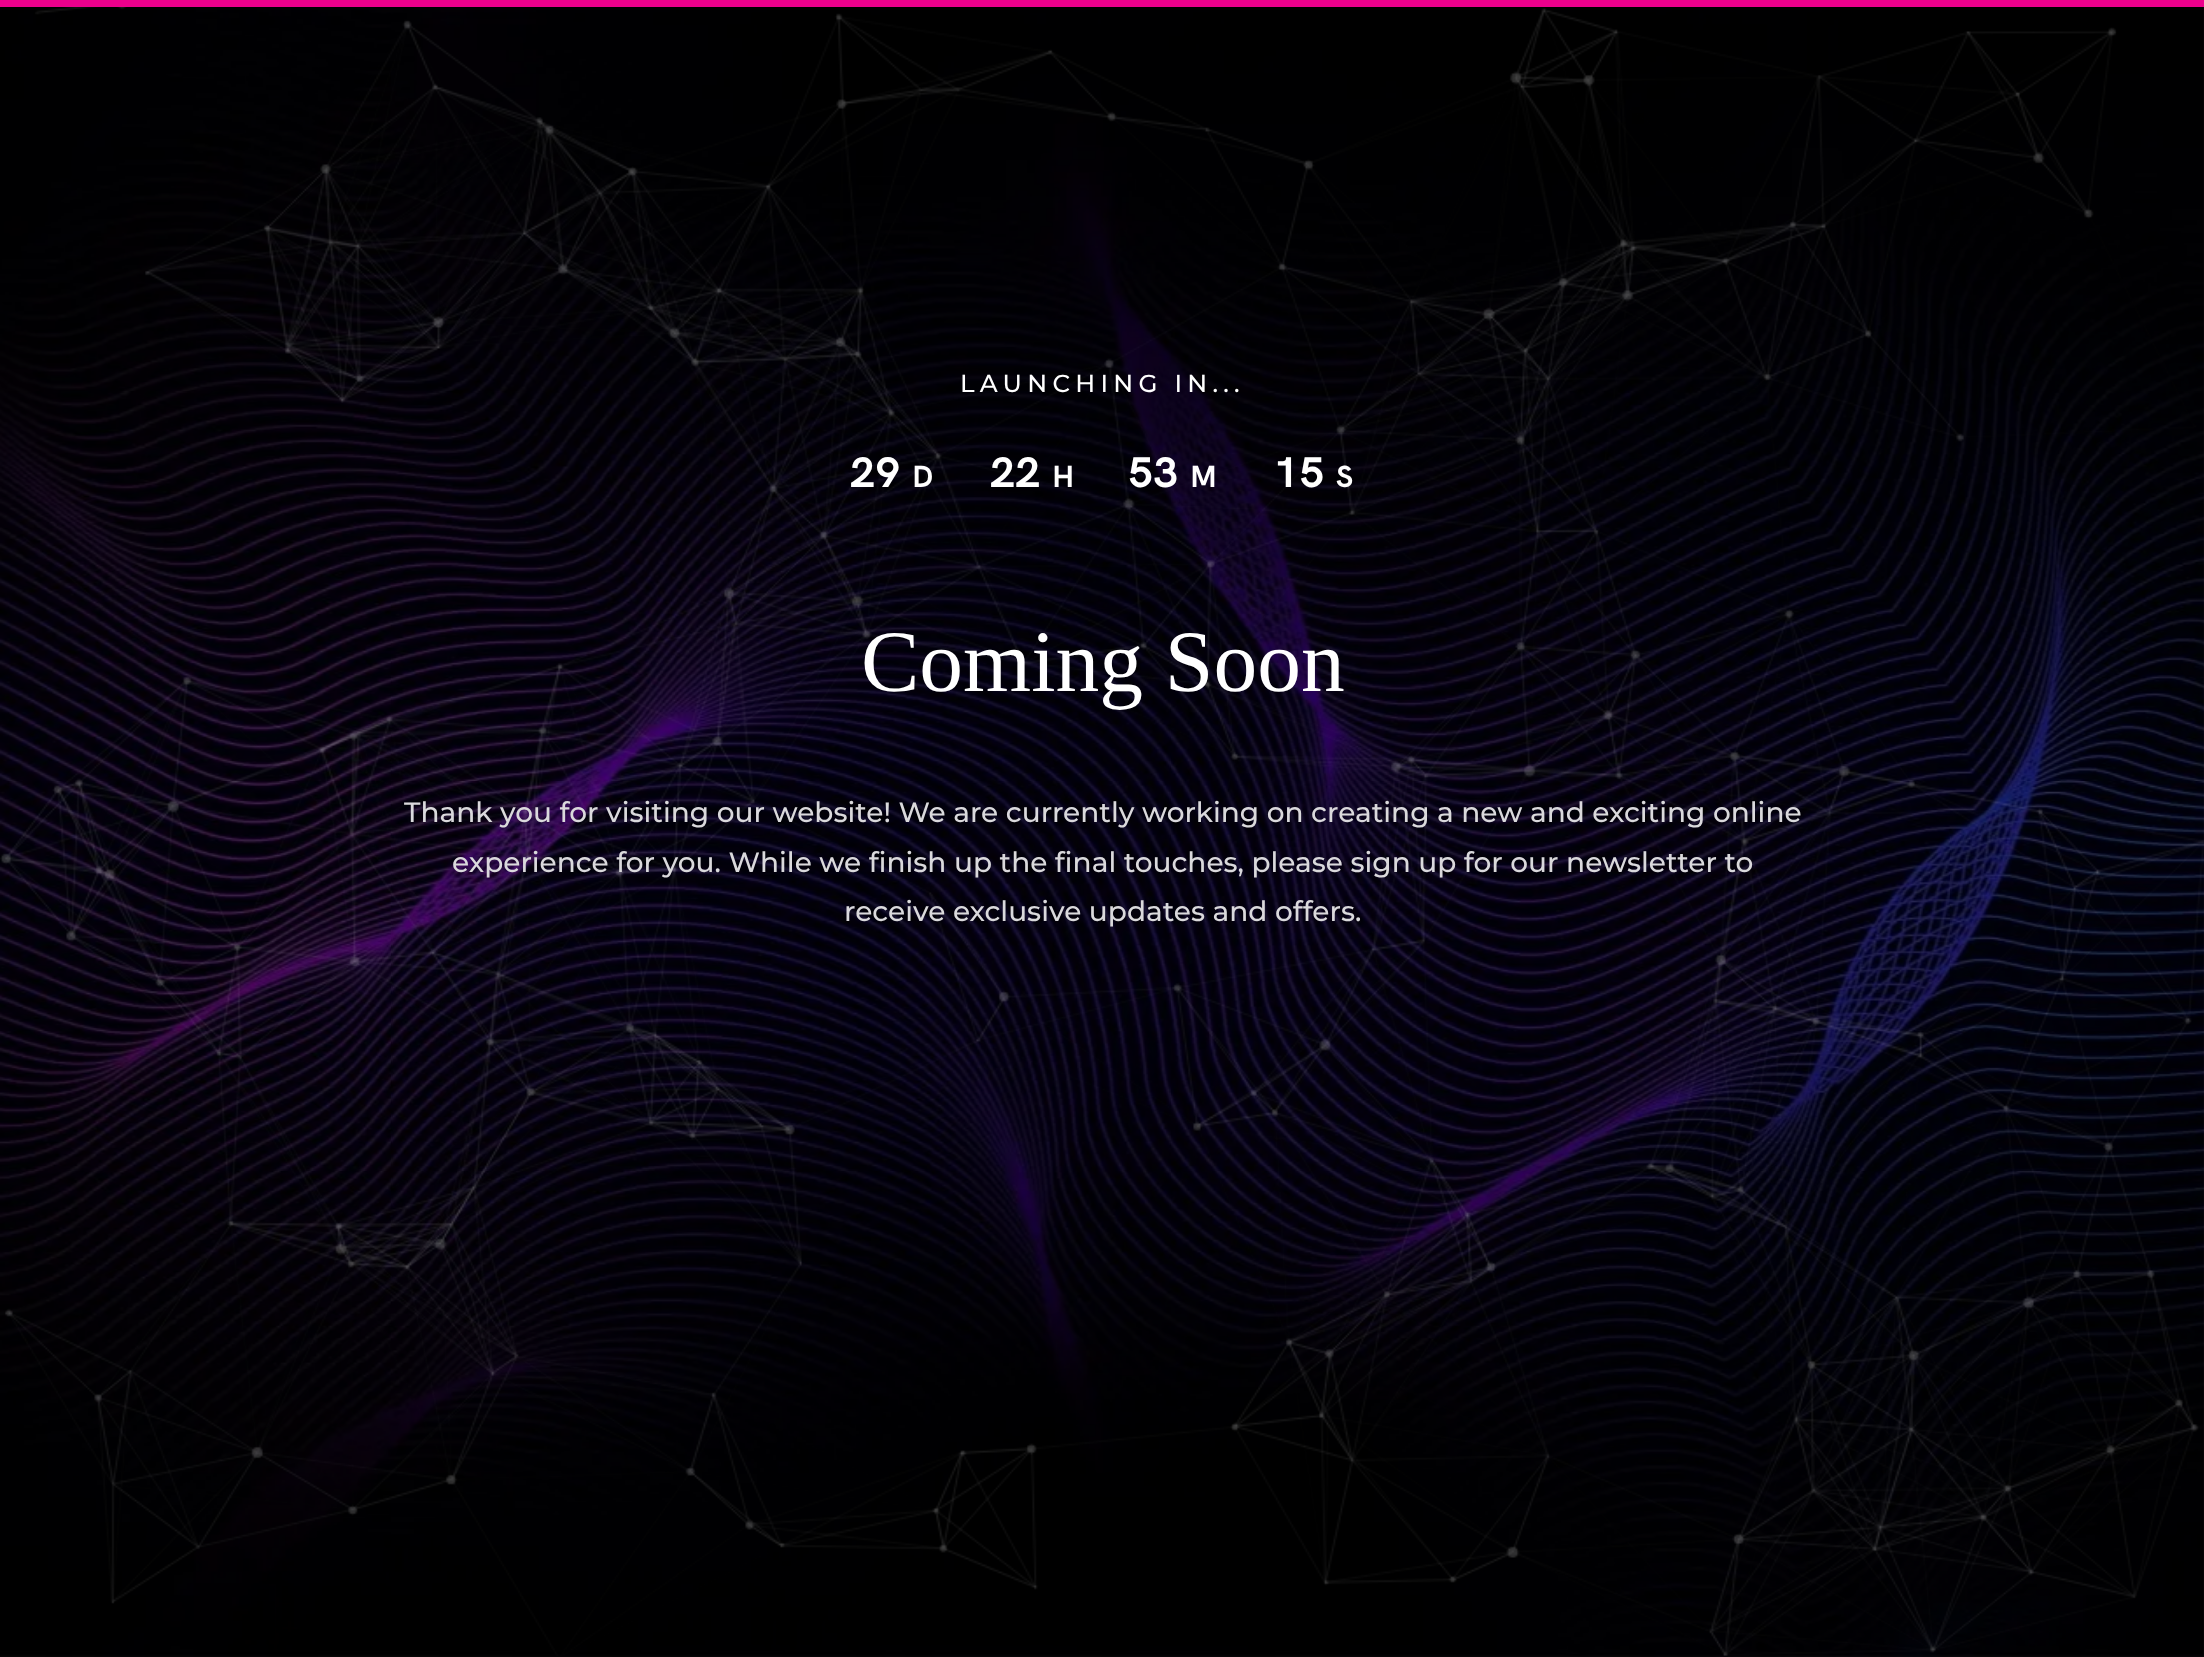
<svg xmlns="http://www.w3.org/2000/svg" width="2204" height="1657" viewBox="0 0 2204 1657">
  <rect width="100%" height="100%" fill="rgb(255,255,255)"/>
  <rect x="0" y="0" width="2204" height="7" fill="rgb(236,0,140)"/>
  <image x="0" y="7" width="2204" height="1650" href="pic1.png"/>
  <image x="0" y="7" width="2204" height="1649" href="pic2.png"/>
  <text x="960" y="392" font-family="Montserrat" font-size="24.5" font-weight="100" letter-spacing="5.25" fill="rgb(255,255,255)">LAUNCHING IN...</text>
  <text x="850" y="487" font-family="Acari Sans" font-size="42" font-weight="bold" fill="rgb(255,255,255)">29</text>
  <text x="912" y="487" font-family="Acari Sans" font-size="30" font-weight="bold" fill="rgb(255,255,255)">D</text>
  <text x="990" y="487" font-family="Acari Sans" font-size="42" font-weight="bold" fill="rgb(255,255,255)">22</text>
  <text x="1052" y="487" font-family="Acari Sans" font-size="30" font-weight="bold" fill="rgb(255,255,255)">H</text>
  <text x="1128" y="487" font-family="Acari Sans" font-size="42" font-weight="bold" fill="rgb(255,255,255)">53</text>
  <text x="1190" y="487" font-family="Acari Sans" font-size="30" font-weight="bold" fill="rgb(255,255,255)">M</text>
  <text x="1274" y="487" font-family="Acari Sans" font-size="42" font-weight="bold" fill="rgb(255,255,255)">15</text>
  <text x="1336" y="487" font-family="Acari Sans" font-size="30" font-weight="bold" fill="rgb(255,255,255)">S</text>
  <text x="861" y="691" font-family="Liberation Serif" font-size="87.5" fill="rgb(255,255,255)">Coming Soon</text>
  <g font-family="Montserrat" font-size="28" font-weight="100" fill="rgb(218,217,220)">
    <text x="404" y="822">Thank you for visiting our website! We are currently working on creating a new and exciting online</text>
    <text x="452" y="872">experience for you. While we finish up the final touches, please sign up for our newsletter to</text>
    <text x="844" y="921">receive exclusive updates and offers.</text>
  </g>
</svg>
